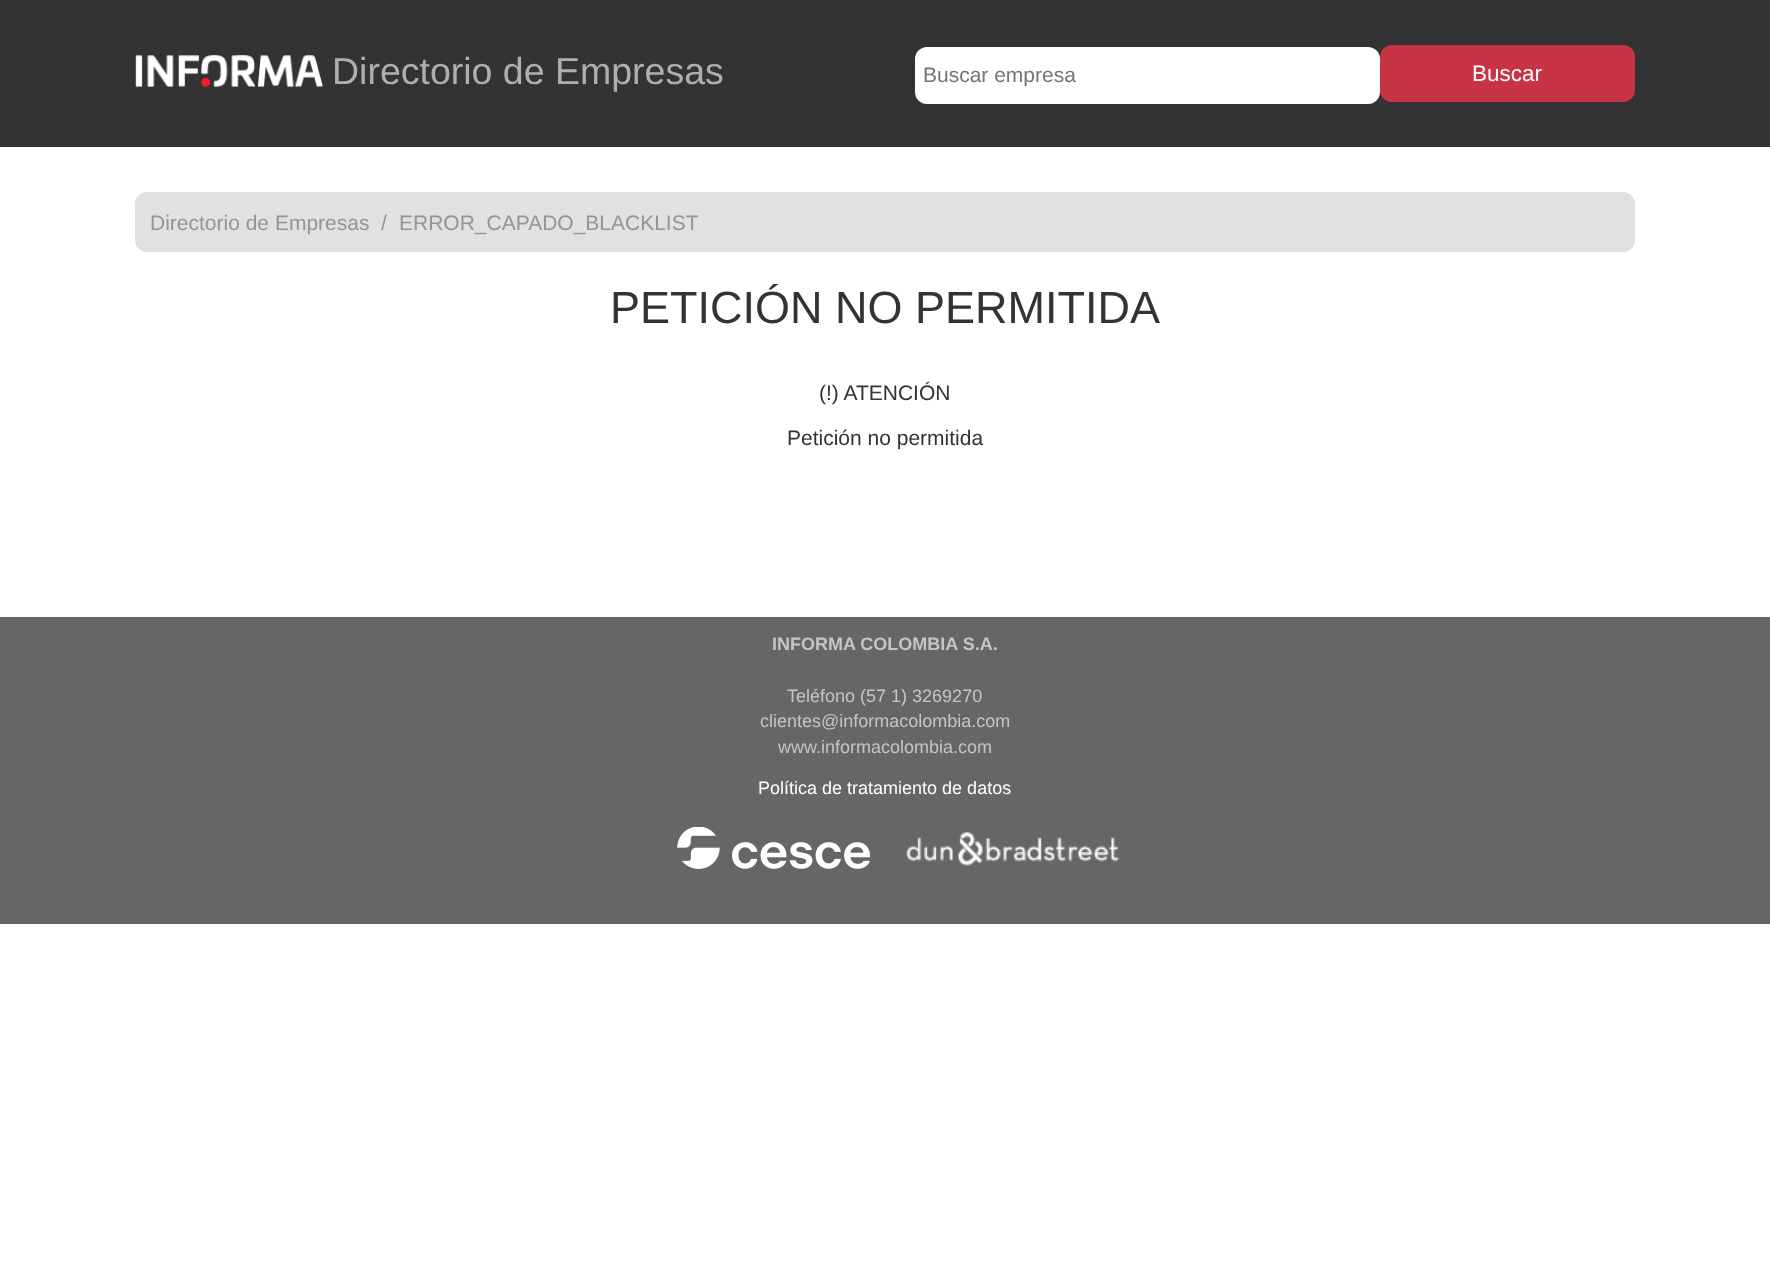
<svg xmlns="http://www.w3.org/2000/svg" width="1770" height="1276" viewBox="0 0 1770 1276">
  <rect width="100%" height="100%" fill="rgb(255,255,255)"/>
  <rect x="0" y="0" width="1770" height="147" fill="rgb(51,51,51)"/>
  <image x="135" y="55" width="188" height="33" href="pic1.png"/>
  <text x="332" y="84" font-family="Liberation Sans" font-size="37.5" fill="rgb(175,175,175)">Directorio de Empresas</text>
  <rect x="915" y="47" width="465" height="57" rx="12" fill="rgb(255,255,255)"/>
  <text x="923" y="82" font-family="Liberation Sans" font-size="21" fill="rgb(117,117,117)">Buscar empresa</text>
  <rect x="1380" y="45" width="255" height="57" rx="12" fill="rgb(199,52,70)"/>
  <text x="1472" y="81" font-family="Liberation Sans" font-size="22.5" fill="rgb(255,255,255)">Buscar</text>
  <rect x="135" y="192" width="1500" height="60" rx="12" fill="rgb(225,225,225)"/>
  <g font-family="Liberation Sans" font-size="21" fill="rgb(149,149,149)">
    <text x="150" y="230">Directorio de Empresas</text>
    <text x="381" y="230">/</text>
    <text x="399" y="230">ERROR_CAPADO_BLACKLIST</text>
  </g>
  <text x="610" y="323" font-family="Liberation Sans" font-size="45" fill="rgb(51,51,51)">PETICIÓN NO PERMITIDA</text>
  <g font-family="Liberation Sans" font-size="21" fill="rgb(51,51,51)">
    <text x="819" y="400">(!) ATENCIÓN</text>
    <text x="787" y="445">Petición no permitida</text>
  </g>
  <rect x="0" y="617" width="1770" height="307" fill="rgb(102,102,102)"/>
  <text x="772" y="650" font-family="Liberation Sans" font-size="18" font-weight="bold" fill="rgb(197,197,197)">INFORMA COLOMBIA S.A.</text>
  <g font-family="Liberation Sans" font-size="18" fill="rgb(197,197,197)">
    <text x="787" y="702">Teléfono (57 1) 3269270</text>
    <text x="760" y="727">clientes@informacolombia.com</text>
    <text x="778" y="753">www.informacolombia.com</text>
  </g>
  <text x="758" y="794" font-family="Liberation Sans" font-size="18" fill="rgb(255,255,255)">Política de tratamiento de datos</text>
  <image x="677" y="827" width="193" height="42" href="pic2.png"/>
  <image x="906" y="832" width="213" height="34" href="pic3.png"/>
</svg>
